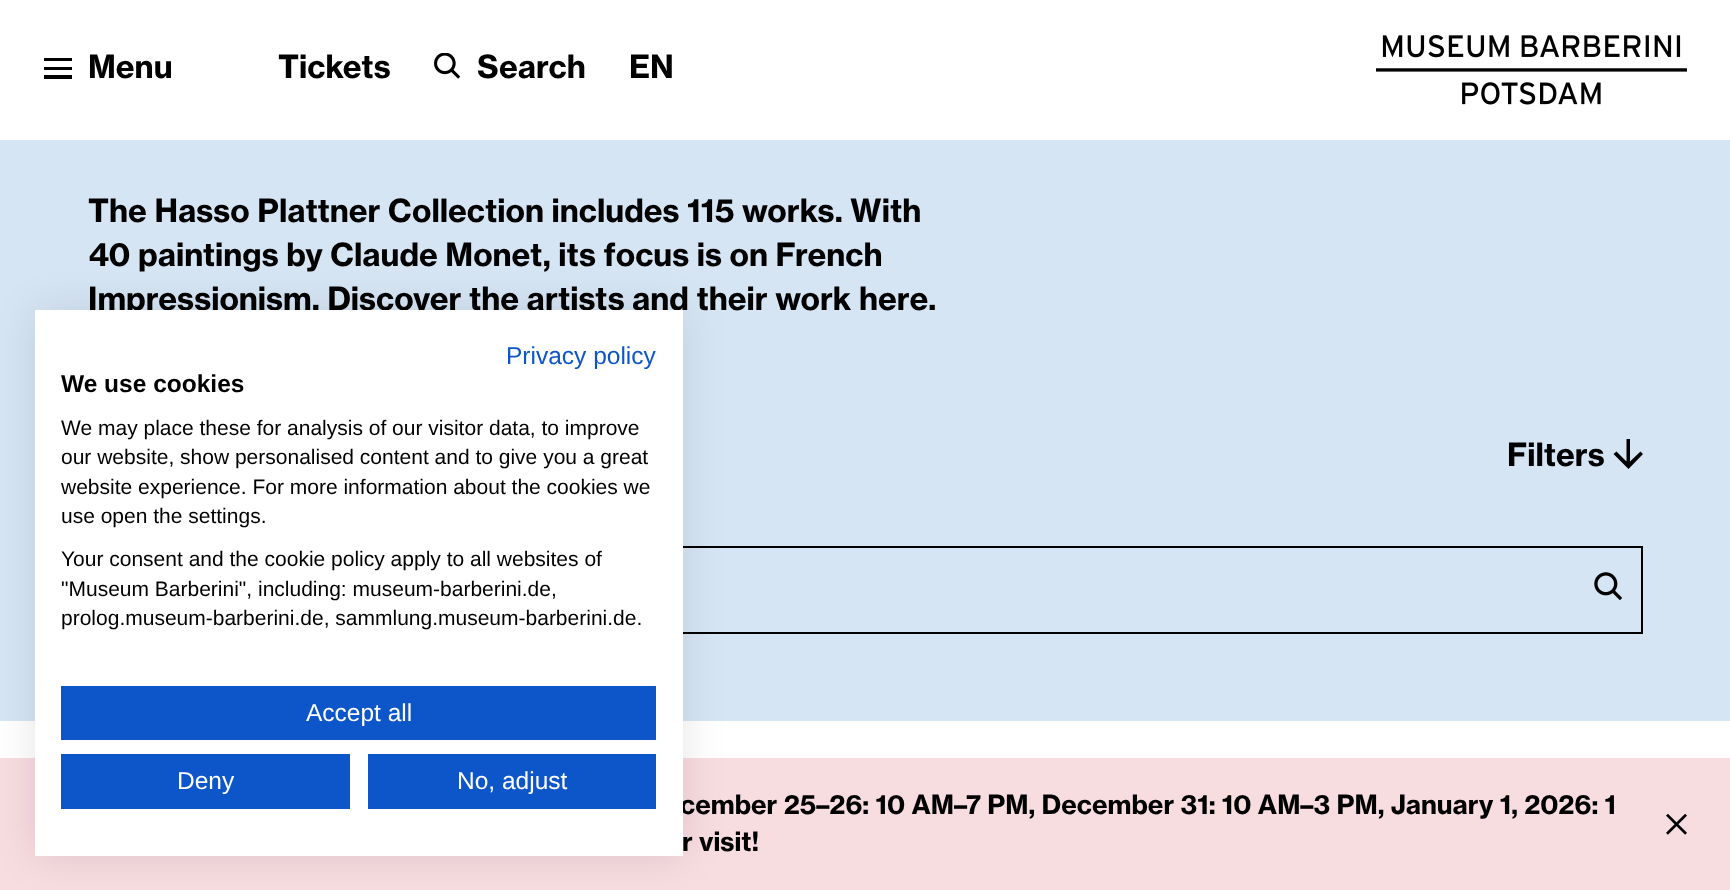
<svg xmlns="http://www.w3.org/2000/svg" width="1730" height="890" viewBox="0 0 1730 890">
  <rect width="100%" height="100%" fill="rgb(255,255,255)"/>
  <rect x="44" y="58" width="28" height="3" fill="rgb(0,0,0)"/>
  <rect x="44" y="67" width="28" height="3" fill="rgb(0,0,0)"/>
  <rect x="44" y="75" width="28" height="4" fill="rgb(0,0,0)"/>
  <g font-family="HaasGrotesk" font-size="31.5" fill="rgb(0,0,0)">
    <text x="88" y="78">Menu</text>
    <text x="278" y="78">Tickets</text>
  </g>
  <image x="434" y="53" width="26" height="26" href="pic1.png"/>
  <g font-family="HaasGrotesk" font-size="31.5" fill="rgb(0,0,0)">
    <text x="477" y="78">Search</text>
    <text x="629" y="78">EN</text>
  </g>
  <image x="1376" y="35" width="311" height="70" href="pic2.png"/>
  <rect x="0" y="140" width="1730" height="581" fill="rgb(214,229,244)"/>
  <g font-family="HaasGrotesk" font-size="31.5" fill="rgb(0,0,0)">
    <text>
      <tspan x="88" y="222">The Hasso Plattner Collection includes 115 works. With</tspan>
      <tspan x="88" y="266">40 paintings by Claude Monet, its focus is on French</tspan>
      <tspan x="88" y="310">Impressionism. Discover the artists</tspan>
    </text>
    <text x="632" y="310">and their work here.</text>
    <text x="1507" y="466">Filters</text>
  </g>
  <path d="M1626.5 439V461.5L1616.5 451.5L1613.5 454L1628.5 469L1643 454L1640.5 451.5L1630 461.5V439Z" fill="rgb(0,0,0)"/>
  <rect x="89" y="547" width="1553" height="86" fill="none" stroke="rgb(0,0,0)" stroke-width="2"/>
  <image x="1594" y="572" width="28" height="28" href="pic3.png"/>
  <rect x="0" y="758" width="1730" height="132" fill="rgb(247,220,224)"/>
  <rect x="35" y="310" width="648" height="546" fill="rgba(0,0,0,0.1)" filter="blur(21px)"/>
  <text x="680" y="814" font-family="HaasGrotesk" font-size="26.25" fill="rgb(0,0,0)">cember 25–26: 10 AM–7 PM, December 31: 10 AM–3 PM, January 1, 2026: 1</text>
  <rect x="35" y="310" width="648" height="546" fill="rgb(255,255,255)"/>
  <text x="506" y="364" font-family="Liberation Sans" font-size="24.5" fill="rgb(13,86,201)">Privacy policy</text>
  <text x="61" y="392" font-family="Liberation Sans" font-size="24.5" font-weight="bold" fill="rgb(0,0,0)">We use cookies</text>
  <g font-family="Liberation Sans" font-size="21" fill="rgb(0,0,0)">
    <text>
      <tspan x="61" y="435">We may place these for analysis of our visitor data, to improve</tspan>
      <tspan x="61" y="464">our website, show personalised content and to give you a great</tspan>
      <tspan x="61" y="494">website experience. For more information about the cookies we</tspan>
      <tspan x="61" y="523">use open the settings.</tspan>
    </text>
    <text>
      <tspan x="61" y="566">Your consent and the cookie policy apply to all websites of</tspan>
      <tspan x="61" y="596">"Museum Barberini", including: museum-barberini.de,</tspan>
      <tspan x="61" y="625">prolog.museum-barberini.de, sammlung.museum-barberini.de.</tspan>
    </text>
  </g>
  <rect x="61" y="686" width="595" height="54" fill="rgb(13,86,201)"/>
  <text x="306" y="721" font-family="Liberation Sans" font-size="24.5" fill="rgb(255,255,255)">Accept all</text>
  <rect x="61" y="754" width="289" height="55" fill="rgb(13,86,201)"/>
  <text x="177" y="789" font-family="Liberation Sans" font-size="24.5" fill="rgb(255,255,255)">Deny</text>
  <rect x="368" y="754" width="288" height="55" fill="rgb(13,86,201)"/>
  <text x="457" y="789" font-family="Liberation Sans" font-size="24.5" fill="rgb(255,255,255)">No, adjust</text>
  <text x="682" y="851" font-family="HaasGrotesk" font-size="26.25" fill="rgb(0,0,0)">r visit!</text>
  <image x="1666" y="814" width="21" height="21" href="pic4.png"/>
</svg>
